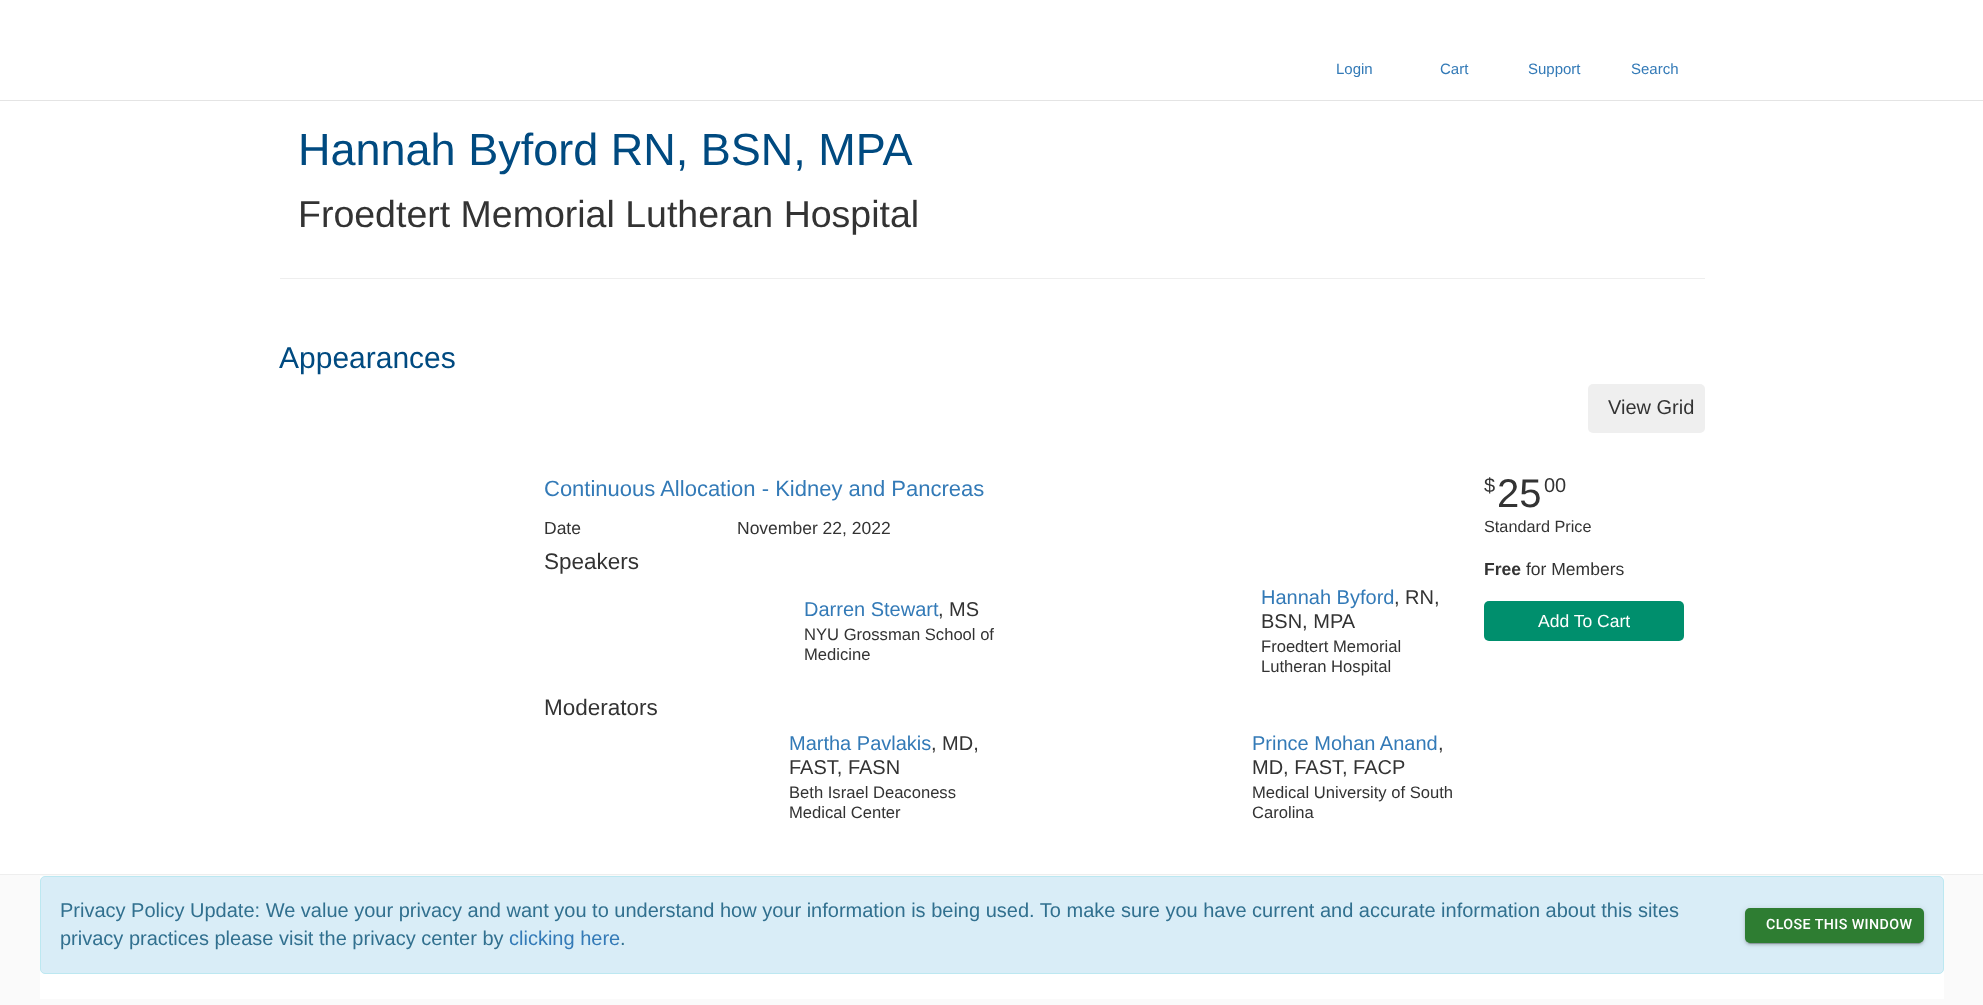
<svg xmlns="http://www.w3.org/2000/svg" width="1983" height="1005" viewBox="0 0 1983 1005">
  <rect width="100%" height="100%" fill="rgb(255,255,255)"/>
  <path d="M0 100V101H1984V1V100Z" fill="rgb(228,228,228)"/>
  <g font-family="Liberation Sans" font-size="15" fill="rgb(51,122,183)">
    <text x="1336" y="74">Login</text>
    <text x="1440" y="74">Cart</text>
    <text x="1528" y="74">Support</text>
    <text x="1631" y="74">Search</text>
  </g>
  <text x="298" y="165" font-family="Liberation Sans" font-size="45" fill="rgb(0,74,128)">Hannah Byford RN, BSN, MPA</text>
  <text x="298" y="227" font-family="Liberation Sans" font-size="37.5" fill="rgb(51,51,51)">Froedtert Memorial Lutheran Hospital</text>
  <rect x="280" y="278" width="1425" height="1" fill="rgb(238,238,238)"/>
  <text x="279" y="368" font-family="Liberation Sans" font-size="30" fill="rgb(0,74,128)">Appearances</text>
  <rect x="1588" y="384" width="117" height="49" rx="5" fill="rgb(239,239,239)"/>
  <text x="1608" y="414" font-family="Liberation Sans" font-size="20" fill="rgb(51,51,51)">View Grid</text>
  <text x="544" y="496" font-family="Liberation Sans" font-size="22" fill="rgb(51,122,183)">Continuous Allocation - Kidney and Pancreas</text>
  <g font-family="Liberation Sans" font-size="17.5" fill="rgb(51,51,51)">
    <text x="544" y="534">Date</text>
    <text x="737" y="534">November 22, 2022</text>
  </g>
  <text x="544" y="569" font-family="Liberation Sans" font-size="22.5" fill="rgb(51,51,51)">Speakers</text>
  <text x="804" y="616" font-family="Liberation Sans" font-size="20" fill="rgb(51,122,183)">Darren Stewart</text>
  <text x="938" y="616" font-family="Liberation Sans" font-size="20" fill="rgb(51,51,51)">, MS</text>
  <g font-family="Liberation Sans" font-size="16.6" fill="rgb(51,51,51)">
    <text>
      <tspan x="804" y="640">NYU Grossman School of</tspan>
      <tspan x="804" y="660">Medicine</tspan>
    </text>
  </g>
  <text x="1261" y="604" font-family="Liberation Sans" font-size="20" fill="rgb(51,122,183)">Hannah Byford</text>
  <g font-family="Liberation Sans" font-size="20" fill="rgb(51,51,51)">
    <text x="1394" y="604">, RN,</text>
    <text x="1261" y="628">BSN, MPA</text>
  </g>
  <g font-family="Liberation Sans" font-size="16.6" fill="rgb(51,51,51)">
    <text>
      <tspan x="1261" y="652">Froedtert Memorial</tspan>
      <tspan x="1261" y="672">Lutheran Hospital</tspan>
    </text>
  </g>
  <text x="544" y="715" font-family="Liberation Sans" font-size="22.5" fill="rgb(51,51,51)">Moderators</text>
  <text x="789" y="750" font-family="Liberation Sans" font-size="20" fill="rgb(51,122,183)">Martha Pavlakis</text>
  <g font-family="Liberation Sans" font-size="20" fill="rgb(51,51,51)">
    <text x="931" y="750">, MD,</text>
    <text x="789" y="774">FAST, FASN</text>
  </g>
  <g font-family="Liberation Sans" font-size="16.6" fill="rgb(51,51,51)">
    <text>
      <tspan x="789" y="798">Beth Israel Deaconess</tspan>
      <tspan x="789" y="818">Medical Center</tspan>
    </text>
  </g>
  <text x="1252" y="750" font-family="Liberation Sans" font-size="20" fill="rgb(51,122,183)">Prince Mohan Anand</text>
  <g font-family="Liberation Sans" font-size="20" fill="rgb(51,51,51)">
    <text x="1438" y="750">,</text>
    <text x="1252" y="774">MD, FAST, FACP</text>
  </g>
  <g font-family="Liberation Sans" font-size="16.6" fill="rgb(51,51,51)">
    <text>
      <tspan x="1252" y="798">Medical University of South</tspan>
      <tspan x="1252" y="818">Carolina</tspan>
    </text>
  </g>
  <text x="1484" y="492" font-family="Liberation Sans" font-size="20" fill="rgb(51,51,51)">$</text>
  <text x="1497" y="507" font-family="Liberation Sans" font-size="40" fill="rgb(51,51,51)">25</text>
  <text x="1544" y="492" font-family="Liberation Sans" font-size="20" fill="rgb(51,51,51)">00</text>
  <text x="1484" y="532" font-family="Liberation Sans" font-size="16.25" fill="rgb(51,51,51)">Standard Price</text>
  <text x="1484" y="575" font-family="Liberation Sans" font-size="17.5" font-weight="bold" fill="rgb(51,51,51)">Free</text>
  <text x="1526" y="575" font-family="Liberation Sans" font-size="17.5" fill="rgb(51,51,51)">for Members</text>
  <rect x="1484" y="601" width="200" height="40" rx="5" fill="rgb(0,143,109)"/>
  <text x="1538" y="627" font-family="Liberation Sans" font-size="17.5" fill="rgb(255,255,255)">Add To Cart</text>
  <rect x="0" y="875" width="1983" height="130" fill="rgb(250,250,250)"/>
  <rect x="0" y="874" width="1983" height="1" fill="rgb(238,238,238)"/>
  <rect x="40" y="876" width="1904" height="123" fill="rgb(255,255,255)"/>
  <rect x="40.5" y="876.5" width="1903" height="97" rx="4.5" fill="rgb(217,237,247)" stroke="rgb(188,232,241)"/>
  <g font-family="Liberation Sans" font-size="20" fill="rgb(49,112,143)">
    <text>
      <tspan x="60" y="917">Privacy Policy Update: We value your privacy and want you to understand how your information is being used. To make sure you have current and accurate information about this sites</tspan>
      <tspan x="60" y="945">privacy practices please visit the privacy center by</tspan>
    </text>
  </g>
  <text x="509" y="945" font-family="Liberation Sans" font-size="20" fill="rgb(51,122,183)">clicking here</text>
  <text x="620" y="945" font-family="Liberation Sans" font-size="20" fill="rgb(49,112,143)">.</text>
  <rect x="1745" y="909" width="179" height="35" rx="5" fill="rgba(0,0,0,0.12)" filter="blur(3px)"/>
  <rect x="1745" y="910" width="179" height="35" rx="5" fill="rgba(0,0,0,0.14)" filter="blur(1px)"/>
  <rect x="1748" y="914" width="173" height="30" rx="2.5" fill="rgba(0,0,0,0.2)" filter="blur(0.5px)"/>
  <rect x="1745" y="908" width="179" height="35" rx="5" fill="rgb(46,125,50)"/>
  <text x="1766" y="929" font-family="Roboto" font-size="14.25" font-weight="500" letter-spacing="0.4" fill="rgb(255,255,255)">CLOSE THIS WINDOW</text>
</svg>
